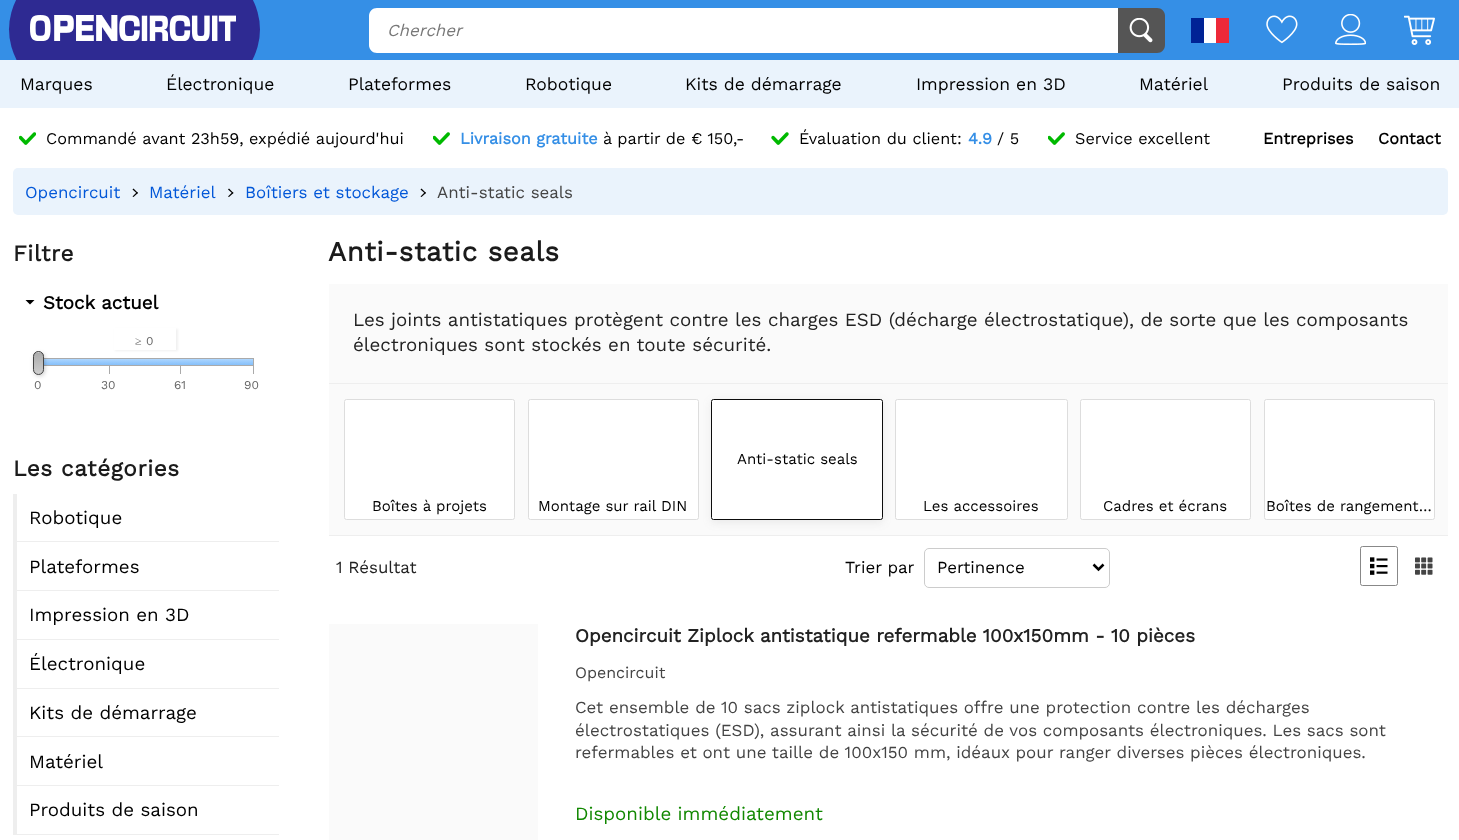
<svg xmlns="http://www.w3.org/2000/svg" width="1459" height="840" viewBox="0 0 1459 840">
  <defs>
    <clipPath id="clip1"><rect x="0" y="0" width="281" height="60"/></clipPath>
    <clipPath id="clip2"><path d="M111 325H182V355H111ZM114 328H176V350H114Z" clip-rule="evenodd"/></clipPath>
    <linearGradient id="g1" gradientUnits="userSpaceOnUse" x1="145" y1="359" x2="145" y2="365"><stop offset="0" stop-color="rgb(175,215,255)"/><stop offset="0.44" stop-color="rgb(155,204,253)"/><stop offset="1" stop-color="rgb(134,192,250)"/></linearGradient>
    <clipPath id="clip3"><rect x="33" y="351" width="11" height="24" rx="5.5"/></clipPath>
    <linearGradient id="g2" gradientUnits="userSpaceOnUse" x1="38" y1="331" x2="38" y2="352"><stop offset="0" stop-color="rgb(170,170,170)"/><stop offset="1" stop-color="rgb(204,204,204)"/></linearGradient>
    <linearGradient id="g3" gradientUnits="userSpaceOnUse" x1="38" y1="352" x2="38" y2="373"><stop offset="0" stop-color="rgb(170,170,170)"/><stop offset="1" stop-color="rgb(204,204,204)"/></linearGradient>
  </defs>
  <rect width="100%" height="100%" fill="rgb(255,255,255)"/>
  <rect x="0" y="0" width="1459" height="60" fill="rgb(53,143,230)"/>
  <g clip-path="url(#clip1)">
    <ellipse cx="134.5" cy="29.5" rx="125.5" ry="89" fill="rgb(46,42,146)"/>
  </g>
  <image x="30" y="15" width="206" height="26" href="pic1.png"/>
  <path d="M377 8H1118V53H377C372.5 53 369 49.5 369 45V16C369 11.5 372.5 8 377 8Z" fill="rgb(255,255,255)"/>
  <text x="387" y="36" font-family="Work Sans" font-size="16.9" font-style="italic" fill="rgb(120,120,120)">Chercher</text>
  <path d="M1118 8H1157C1161.5 8 1165 11.5 1165 16V45C1165 49.5 1161.5 53 1157 53H1118Z" fill="rgb(85,85,85)"/>
  <image x="1129" y="18" width="24" height="25" href="pic2.png"/>
  <rect x="1191" y="18" width="13" height="25" fill="rgb(0,35,149)"/>
  <rect x="1204" y="18" width="12" height="25" fill="rgb(255,255,255)"/>
  <rect x="1216" y="18" width="13" height="25" fill="rgb(237,41,57)"/>
  <image x="1266" y="15" width="32" height="29" href="pic3.png"/>
  <image x="1335" y="14" width="31" height="31" href="pic4.png"/>
  <image x="1404" y="15" width="31" height="30" href="pic5.png"/>
  <rect x="0" y="60" width="1459" height="48" fill="rgb(234,243,252)"/>
  <g font-family="Work Sans" font-size="17.5" fill="rgb(0,0,0)">
    <text x="20" y="90">Marques</text>
    <text x="166" y="90">Électronique</text>
    <text x="348" y="90">Plateformes</text>
    <text x="525" y="90">Robotique</text>
    <text x="685" y="90">Kits de démarrage</text>
    <text x="916" y="90">Impression en 3D</text>
    <text x="1139" y="90">Matériel</text>
    <text x="1282" y="90">Produits de saison</text>
  </g>
  <image x="19" y="132" width="17" height="13" href="pic6.png"/>
  <text x="46" y="144" font-family="Work Sans" font-size="16.25" fill="rgb(0,0,0)">Commandé avant 23h59, expédié aujourd'hui</text>
  <image x="433" y="132" width="17" height="13" href="pic7.png"/>
  <text x="460" y="144" font-family="Work Sans" font-size="16.25" font-weight="bold" fill="rgb(53,143,230)">Livraison gratuite</text>
  <text x="603" y="144" font-family="Work Sans" font-size="16.25" fill="rgb(0,0,0)">à partir de € 150,-</text>
  <image x="771" y="132" width="18" height="13" href="pic8.png"/>
  <text x="799" y="144" font-family="Work Sans" font-size="16.25" fill="rgb(0,0,0)">Évaluation du client:</text>
  <text x="968" y="144" font-family="Work Sans" font-size="16.25" font-weight="bold" fill="rgb(53,143,230)">4.9</text>
  <text x="997" y="144" font-family="Work Sans" font-size="16.25" fill="rgb(0,0,0)">/ 5</text>
  <image x="1048" y="132" width="17" height="13" href="pic7.png"/>
  <text x="1075" y="144" font-family="Work Sans" font-size="16.25" fill="rgb(0,0,0)">Service excellent</text>
  <g font-family="Work Sans" font-size="16.25" font-weight="bold" fill="rgb(0,0,0)">
    <text x="1263" y="144">Entreprises</text>
    <text x="1378" y="144">Contact</text>
  </g>
  <rect x="13" y="168" width="1435" height="47" rx="5" fill="rgb(234,243,252)"/>
  <text x="25" y="198" font-family="Work Sans" font-size="16.9" fill="rgb(2,87,216)">Opencircuit</text>
  <path d="M132.5 189.5L133.5 188.5L138 193L137 193.5Z" fill="rgb(0,0,0)"/>
  <path d="M132.5 196.5L137 192L138 193L133.5 197Z" fill="rgb(0,0,0)"/>
  <text x="149" y="198" font-family="Work Sans" font-size="16.9" fill="rgb(2,87,216)">Matériel</text>
  <path d="M228 189.5L229 188.5L233.5 193L232.5 193.5Z" fill="rgb(0,0,0)"/>
  <path d="M228 196.5L232.5 192L233.5 193L229 197Z" fill="rgb(0,0,0)"/>
  <text x="245" y="198" font-family="Work Sans" font-size="16.9" fill="rgb(2,87,216)">Boîtiers et stockage</text>
  <path d="M420.5 189.5L421.5 188.5L426 193L425 193.5Z" fill="rgb(0,0,0)"/>
  <path d="M420.5 196.5L425 192L426 193L421.5 197Z" fill="rgb(0,0,0)"/>
  <text x="437" y="198" font-family="Work Sans" font-size="16.9" fill="rgb(68,68,68)">Anti-static seals</text>
  <text x="13" y="261" font-family="Work Sans" font-size="22.5" font-weight="bold" letter-spacing="0.6" fill="rgb(27,27,27)">Filtre</text>
  <path d="M25.5 300H34.5L30 304.5Z" fill="rgb(0,0,0)"/>
  <text x="43" y="309" font-family="Work Sans" font-size="18.75" font-weight="bold" fill="rgb(0,0,0)">Stock actuel</text>
  <g clip-path="url(#clip2)">
    <rect x="115" y="329" width="63" height="22" fill="rgba(0,0,0,0.06)" filter="blur(1px)"/>
  </g>
  <text x="135" y="345" font-family="Liberation Serif" font-size="12" fill="rgb(102,102,102)">≥</text>
  <text x="146" y="345" font-family="Work Sans" font-size="12" fill="rgb(102,102,102)">0</text>
  <rect x="38.5" y="358.5" width="215" height="7" fill="none" stroke="rgb(170,170,170)"/>
  <rect x="38" y="359" width="215" height="6" fill="url(#g1)"/>
  <rect x="34" y="353" width="11" height="23" rx="5.5" fill="rgba(0,0,0,0.2)" filter="blur(2px)"/>
  <g clip-path="url(#clip3)">
    <rect x="33" y="351" width="11" height="2" fill="url(#g2)"/>
    <rect x="33" y="353" width="11" height="21" fill="url(#g3)"/>
  </g>
  <rect x="33.5" y="351.5" width="10" height="23" rx="5" fill="none" stroke="rgb(68,68,68)"/>
  <text x="34" y="389" font-family="Work Sans" font-size="12" fill="rgb(102,102,102)">0</text>
  <rect x="109" y="366" width="1" height="8" fill="rgb(170,170,170)"/>
  <text x="101" y="389" font-family="Work Sans" font-size="12" fill="rgb(102,102,102)">30</text>
  <rect x="180" y="366" width="1" height="8" fill="rgb(170,170,170)"/>
  <text x="174" y="389" font-family="Work Sans" font-size="12" fill="rgb(102,102,102)">61</text>
  <rect x="253" y="366" width="1" height="8" fill="rgb(170,170,170)"/>
  <text x="244" y="389" font-family="Work Sans" font-size="12" fill="rgb(102,102,102)">90</text>
  <text x="13" y="476" font-family="Work Sans" font-size="22.5" font-weight="bold" letter-spacing="0.6" fill="rgb(27,27,27)">Les catégories</text>
  <rect x="13" y="541" width="266" height="1" fill="rgb(238,238,238)"/>
  <rect x="13" y="494" width="4" height="49" fill="rgb(238,238,238)"/>
  <text x="29" y="524" font-family="Work Sans" font-size="18.75" fill="rgb(0,0,0)">Robotique</text>
  <rect x="13" y="590" width="266" height="1" fill="rgb(238,238,238)"/>
  <rect x="13" y="543" width="4" height="48" fill="rgb(238,238,238)"/>
  <text x="29" y="573" font-family="Work Sans" font-size="18.75" fill="rgb(0,0,0)">Plateformes</text>
  <rect x="13" y="639" width="266" height="1" fill="rgb(238,238,238)"/>
  <rect x="13" y="591" width="4" height="49" fill="rgb(238,238,238)"/>
  <text x="29" y="621" font-family="Work Sans" font-size="18.75" fill="rgb(0,0,0)">Impression en 3D</text>
  <rect x="13" y="688" width="266" height="1" fill="rgb(238,238,238)"/>
  <rect x="13" y="640" width="4" height="49" fill="rgb(238,238,238)"/>
  <text x="29" y="670" font-family="Work Sans" font-size="18.75" fill="rgb(0,0,0)">Électronique</text>
  <rect x="13" y="736" width="266" height="1" fill="rgb(238,238,238)"/>
  <rect x="13" y="689" width="4" height="49" fill="rgb(238,238,238)"/>
  <text x="29" y="719" font-family="Work Sans" font-size="18.75" fill="rgb(0,0,0)">Kits de démarrage</text>
  <rect x="13" y="785" width="266" height="1" fill="rgb(238,238,238)"/>
  <rect x="13" y="738" width="4" height="48" fill="rgb(238,238,238)"/>
  <text x="29" y="768" font-family="Work Sans" font-size="18.75" fill="rgb(0,0,0)">Matériel</text>
  <rect x="13" y="834" width="266" height="1" fill="rgb(238,238,238)"/>
  <rect x="13" y="786" width="4" height="49" fill="rgb(238,238,238)"/>
  <text x="29" y="816" font-family="Work Sans" font-size="18.75" fill="rgb(0,0,0)">Produits de saison</text>
  <text x="328" y="261" font-family="Work Sans" font-size="27.5" font-weight="bold" letter-spacing="0.6" fill="rgb(27,27,27)">Anti-static seals</text>
  <rect x="329" y="284" width="1119" height="99" fill="rgb(250,250,250)"/>
  <rect x="329" y="383" width="1119" height="1" fill="rgb(238,238,238)"/>
  <g font-family="Work Sans" font-size="18.75" fill="rgb(34,34,34)">
    <text>
      <tspan x="353" y="326">Les joints antistatiques protègent contre les charges ESD (décharge électrostatique), de sorte que les composants</tspan>
      <tspan x="353" y="351">électroniques sont stockés en toute sécurité.</tspan>
    </text>
  </g>
  <rect x="329" y="384" width="1119" height="151" fill="rgb(250,250,250)"/>
  <rect x="329" y="535" width="1119" height="1" fill="rgb(238,238,238)"/>
  <rect x="528.5" y="399.5" width="170" height="120" rx="2" fill="rgb(255,255,255)" stroke="rgb(221,221,221)"/>
  <rect x="711" y="401" width="172" height="122" rx="2.5" fill="rgba(100,100,100,0.1)" filter="blur(4px)"/>
  <rect x="711.5" y="399.5" width="171" height="120" rx="2" fill="rgb(255,255,255)" stroke="rgb(13,13,13)"/>
  <text x="737" y="464" font-family="Work Sans" font-size="15" fill="rgb(0,0,0)">Anti-static seals</text>
  <rect x="344.5" y="399.5" width="170" height="120" rx="2" fill="rgb(255,255,255)" stroke="rgb(221,221,221)"/>
  <g font-family="Work Sans" font-size="15" fill="rgb(0,0,0)">
    <text x="372" y="511">Boîtes à projets</text>
    <text x="538" y="511">Montage sur rail DIN</text>
  </g>
  <rect x="895.5" y="399.5" width="172" height="120" rx="2" fill="rgb(255,255,255)" stroke="rgb(221,221,221)"/>
  <text x="923" y="511" font-family="Work Sans" font-size="15" fill="rgb(0,0,0)">Les accessoires</text>
  <rect x="1080.5" y="399.5" width="170" height="120" rx="2" fill="rgb(255,255,255)" stroke="rgb(221,221,221)"/>
  <text x="1103" y="511" font-family="Work Sans" font-size="15" fill="rgb(0,0,0)">Cadres et écrans</text>
  <rect x="1264.5" y="399.5" width="170" height="120" rx="2" fill="rgb(255,255,255)" stroke="rgb(221,221,221)"/>
  <text x="1266" y="511" font-family="Work Sans" font-size="15" fill="rgb(0,0,0)">Boîtes de rangement…</text>
  <text x="336" y="573" font-family="Work Sans" font-size="16.9" fill="rgb(34,34,34)">1 Résultat</text>
  <text x="845" y="573" font-family="Work Sans" font-size="16.9" fill="rgb(0,0,0)">Trier par</text>
  <rect x="924.5" y="548.5" width="185" height="39" rx="4.5" fill="none" stroke="rgb(204,204,204)"/>
  <path d="M1093.5 564.5L1098.5 569.5L1103.5 564.5" fill="none" stroke="rgb(0,0,0)" stroke-width="2.5"/>
  <text x="937" y="573" font-family="Work Sans" font-size="16.9" fill="rgb(0,0,0)">Pertinence</text>
  <rect x="1360.5" y="546.5" width="37" height="39" rx="2" fill="none" stroke="rgb(136,136,136)"/>
  <image x="1370" y="557" width="18" height="18" href="pic9.png"/>
  <image x="1415" y="557" width="18" height="18" href="pic10.png"/>
  <rect x="329" y="624" width="209" height="216" fill="rgb(250,250,250)"/>
  <text x="575" y="642" font-family="Work Sans" font-size="18.75" font-weight="bold" fill="rgb(34,34,34)">Opencircuit Ziplock antistatique refermable 100x150mm - 10 pièces</text>
  <text x="575" y="678" font-family="Work Sans" font-size="16" fill="rgb(68,68,68)">Opencircuit</text>
  <g font-family="Work Sans" font-size="16.9" fill="rgb(68,68,68)">
    <text>
      <tspan x="575" y="713">Cet ensemble de 10 sacs ziplock antistatiques offre une protection contre les décharges</tspan>
      <tspan x="575" y="736">électrostatiques (ESD), assurant ainsi la sécurité de vos composants électroniques. Les sacs sont</tspan>
      <tspan x="575" y="758">refermables et ont une taille de 100x150 mm, idéaux pour ranger diverses pièces électroniques.</tspan>
    </text>
  </g>
  <text x="575" y="820" font-family="Work Sans" font-size="18.75" fill="rgb(17,136,0)">Disponible immédiatement</text>
</svg>
